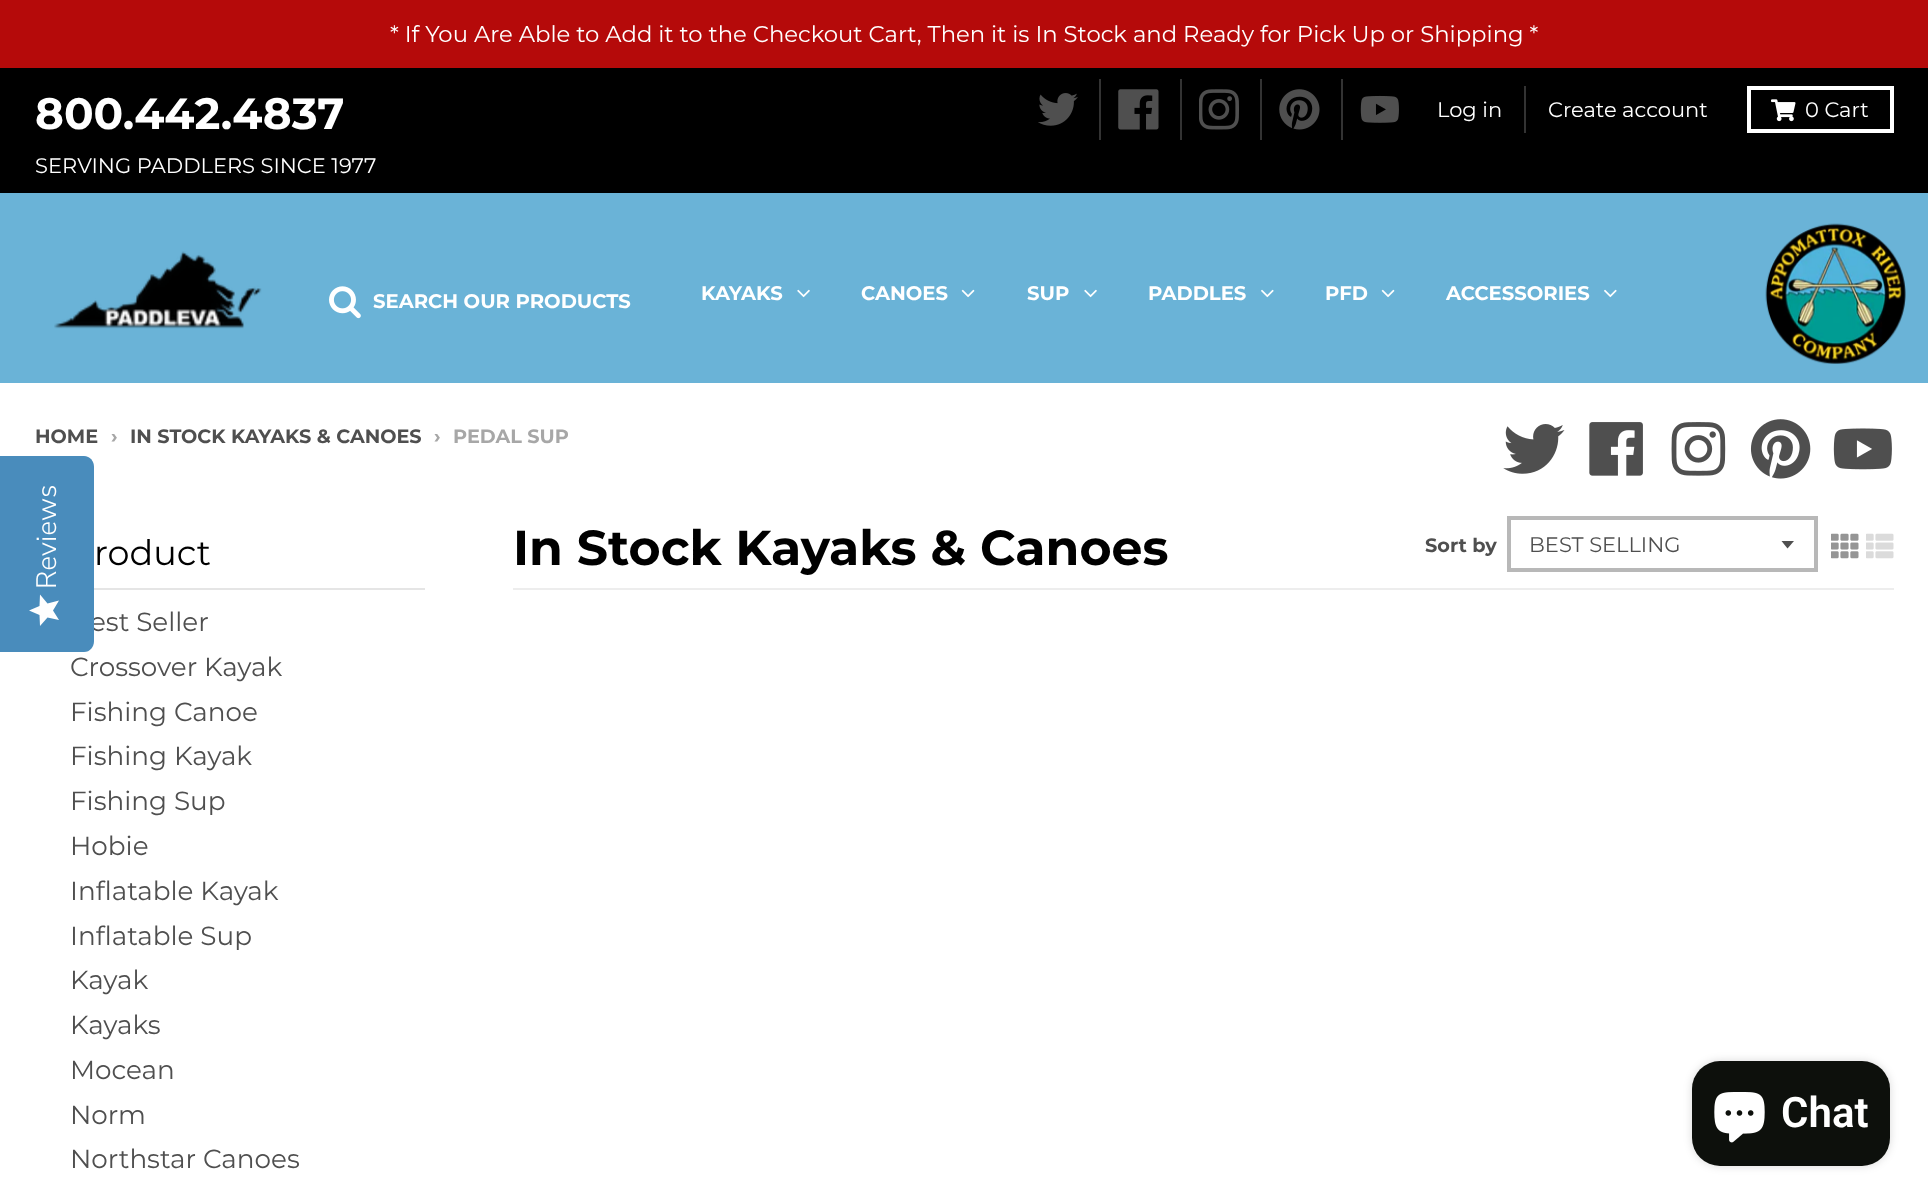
<svg xmlns="http://www.w3.org/2000/svg" width="1928" height="1201" viewBox="0 0 1928 1201">
  <defs>
    <linearGradient id="g1" gradientUnits="userSpaceOnUse" x1="29" y1="626" x2="29" y2="595"><stop offset="1" stop-color="rgb(254,254,254)"/><stop offset="1" stop-color="rgb(234,234,234)"/></linearGradient>
  </defs>
  <rect width="100%" height="100%" fill="rgb(255,255,255)"/>
  <rect x="0" y="0" width="1928" height="68" fill="rgb(181,10,10)"/>
  <text x="390" y="42" font-family="Montserrat" font-size="22.75" font-weight="100" fill="rgb(255,255,255)">* If You Are Able to Add it to the Checkout Cart, Then it is In Stock and Ready for Pick Up or Shipping *</text>
  <rect x="0" y="68" width="1928" height="125" fill="rgb(0,0,0)"/>
  <text x="35" y="129" font-family="Montserrat" font-size="43.75" font-weight="bold" fill="rgb(255,255,255)">800.442.4837</text>
  <text x="35" y="173" font-family="Montserrat" font-size="21" font-weight="100" fill="rgb(255,255,255)">SERVING PADDLERS SINCE 1977</text>
  <rect x="1099" y="79" width="2" height="61" fill="rgb(51,51,51)"/>
  <image x="1038" y="93" width="40" height="33" href="pic1.png"/>
  <rect x="1180" y="79" width="2" height="61" fill="rgb(51,51,51)"/>
  <image x="1118" y="89" width="41" height="41" href="pic2.png"/>
  <rect x="1260" y="79" width="2" height="61" fill="rgb(51,51,51)"/>
  <image x="1199" y="89" width="40" height="41" href="pic3.png"/>
  <rect x="1341" y="79" width="2" height="61" fill="rgb(51,51,51)"/>
  <image x="1279" y="89" width="41" height="41" href="pic4.png"/>
  <image x="1360" y="95" width="39" height="28" href="pic5.png"/>
  <rect x="1524" y="86" width="2" height="47" fill="rgb(51,51,51)"/>
  <g font-family="Montserrat" font-size="21" font-weight="100" fill="rgb(255,255,255)">
    <text x="1437" y="117">Log in</text>
    <text x="1548" y="117">Create account</text>
  </g>
  <rect x="1749" y="88" width="143" height="43" fill="none" stroke="rgb(255,255,255)" stroke-width="4"/>
  <image x="1771" y="99" width="25" height="23" href="pic6.png"/>
  <text x="1805" y="117" font-family="Montserrat" font-size="21" font-weight="100" fill="rgb(255,255,255)">0 Cart</text>
  <rect x="0" y="193" width="1928" height="190" fill="rgb(106,179,215)"/>
  <image x="54" y="251" width="208" height="78" href="pic7.png"/>
  <image x="1765" y="223" width="141" height="141" href="pic8.png"/>
  <image x="329" y="286" width="32" height="33" href="pic9.png"/>
  <g font-family="Montserrat" font-size="19.6" font-weight="bold" fill="rgb(255,255,255)">
    <text x="373" y="308">SEARCH OUR PRODUCTS</text>
    <text x="701" y="300">KAYAKS</text>
  </g>
  <image x="797" y="289" width="13" height="9" href="pic10.png"/>
  <text x="861" y="300" font-family="Montserrat" font-size="19.6" font-weight="bold" fill="rgb(255,255,255)">CANOES</text>
  <image x="961" y="289" width="14" height="9" href="pic11.png"/>
  <text x="1027" y="300" font-family="Montserrat" font-size="19.6" font-weight="bold" fill="rgb(255,255,255)">SUP</text>
  <image x="1084" y="289" width="13" height="9" href="pic10.png"/>
  <text x="1148" y="300" font-family="Montserrat" font-size="19.6" font-weight="bold" fill="rgb(255,255,255)">PADDLES</text>
  <image x="1261" y="289" width="13" height="9" href="pic12.png"/>
  <text x="1325" y="300" font-family="Montserrat" font-size="19.6" font-weight="bold" fill="rgb(255,255,255)">PFD</text>
  <image x="1381" y="289" width="14" height="9" href="pic11.png"/>
  <text x="1446" y="300" font-family="Montserrat" font-size="19.6" font-weight="bold" fill="rgb(255,255,255)">ACCESSORIES</text>
  <image x="1604" y="289" width="13" height="9" href="pic12.png"/>
  <text x="35" y="443" font-family="Montserrat" font-size="19.25" font-weight="bold" fill="rgb(79,79,79)">HOME</text>
  <text x="111" y="443" font-family="Montserrat" font-size="19.25" font-weight="bold" fill="rgb(167,167,167)">›</text>
  <text x="130" y="443" font-family="Montserrat" font-size="19.25" font-weight="bold" fill="rgb(79,79,79)">IN STOCK KAYAKS &amp; CANOES</text>
  <g font-family="Montserrat" font-size="19.25" font-weight="bold" fill="rgb(167,167,167)">
    <text x="434" y="443">›</text>
    <text x="453" y="443">PEDAL SUP</text>
  </g>
  <image x="1503" y="424" width="62" height="50" href="pic13.png"/>
  <image x="1589" y="422" width="54" height="54" href="pic14.png"/>
  <image x="1671" y="422" width="55" height="54" href="pic15.png"/>
  <image x="1750" y="419" width="61" height="60" href="pic16.png"/>
  <image x="1833" y="428" width="59" height="42" href="pic17.png"/>
  <rect x="94" y="588" width="331" height="2" fill="rgb(229,229,229)"/>
  <text x="94" y="565" font-family="Montserrat" font-size="35" font-weight="100" fill="rgb(0,0,0)">roduct</text>
  <g font-family="Montserrat" font-size="26.25" font-weight="100" fill="rgb(79,79,79)">
    <text x="90" y="631">est Seller</text>
    <text>
      <tspan x="70" y="676">Crossover Kayak</tspan>
      <tspan x="70" y="721">Fishing Canoe</tspan>
      <tspan x="70" y="765">Fishing Kayak</tspan>
      <tspan x="70" y="810">Fishing Sup</tspan>
      <tspan x="70" y="855">Hobie</tspan>
      <tspan x="70" y="900">Inflatable Kayak</tspan>
      <tspan x="70" y="945">Inflatable Sup</tspan>
      <tspan x="70" y="989">Kayak</tspan>
      <tspan x="70" y="1034">Kayaks</tspan>
      <tspan x="70" y="1079">Mocean</tspan>
      <tspan x="70" y="1124">Norm</tspan>
      <tspan x="70" y="1168">Northstar Canoes</tspan>
    </text>
  </g>
  <rect x="513" y="588" width="1381" height="2" fill="rgb(237,237,237)"/>
  <text x="513" y="565" font-family="Montserrat" font-size="49" font-weight="bold" fill="rgb(0,0,0)">In Stock Kayaks &amp; Canoes</text>
  <text x="1425" y="552" font-family="Montserrat" font-size="19.25" font-weight="bold" fill="rgb(79,79,79)">Sort by</text>
  <path d="M1781.5 541L1787.5 548.5L1794 541Z" fill="rgb(79,79,79)"/>
  <rect x="1509" y="518" width="307" height="52" fill="none" stroke="rgb(184,184,184)" stroke-width="4"/>
  <text x="1529" y="552" font-family="Montserrat" font-size="21" font-weight="100" fill="rgb(79,79,79)">BEST SELLING</text>
  <image x="1831" y="533" width="28" height="26" href="pic18.png"/>
  <image x="1866" y="533" width="28" height="26" href="pic19.png"/>
  <path d="M0 652V456H84C90 456 94 461 94 467V641C94 647 90 652 84 652Z" fill="rgb(73,140,188)"/>
  <text x="56" y="589" transform="rotate(-90 56 589)" font-family="Nunito Sans" font-size="28" font-weight="300" fill="rgb(255,255,255)">Reviews</text>
  <path d="M53 610.5L59 600.5L47.5 603.5L40 594.5L39.5 606L29 610.5L39.5 615L40 626L47.5 617.5L59 620Z" fill="url(#g1)"/>
  <rect x="1692" y="1061" width="198" height="105" rx="28" fill="rgba(0,0,0,0.15)" filter="blur(4.5px)"/>
  <rect x="1692" y="1061" width="198" height="105" rx="28" fill="rgb(13,16,12)"/>
  <image x="1714" y="1092" width="51" height="51" href="pic20.png"/>
  <text x="1781" y="1127" font-family="Roboto" font-size="42" font-weight="600" fill="rgb(255,255,255)">Chat</text>
</svg>
